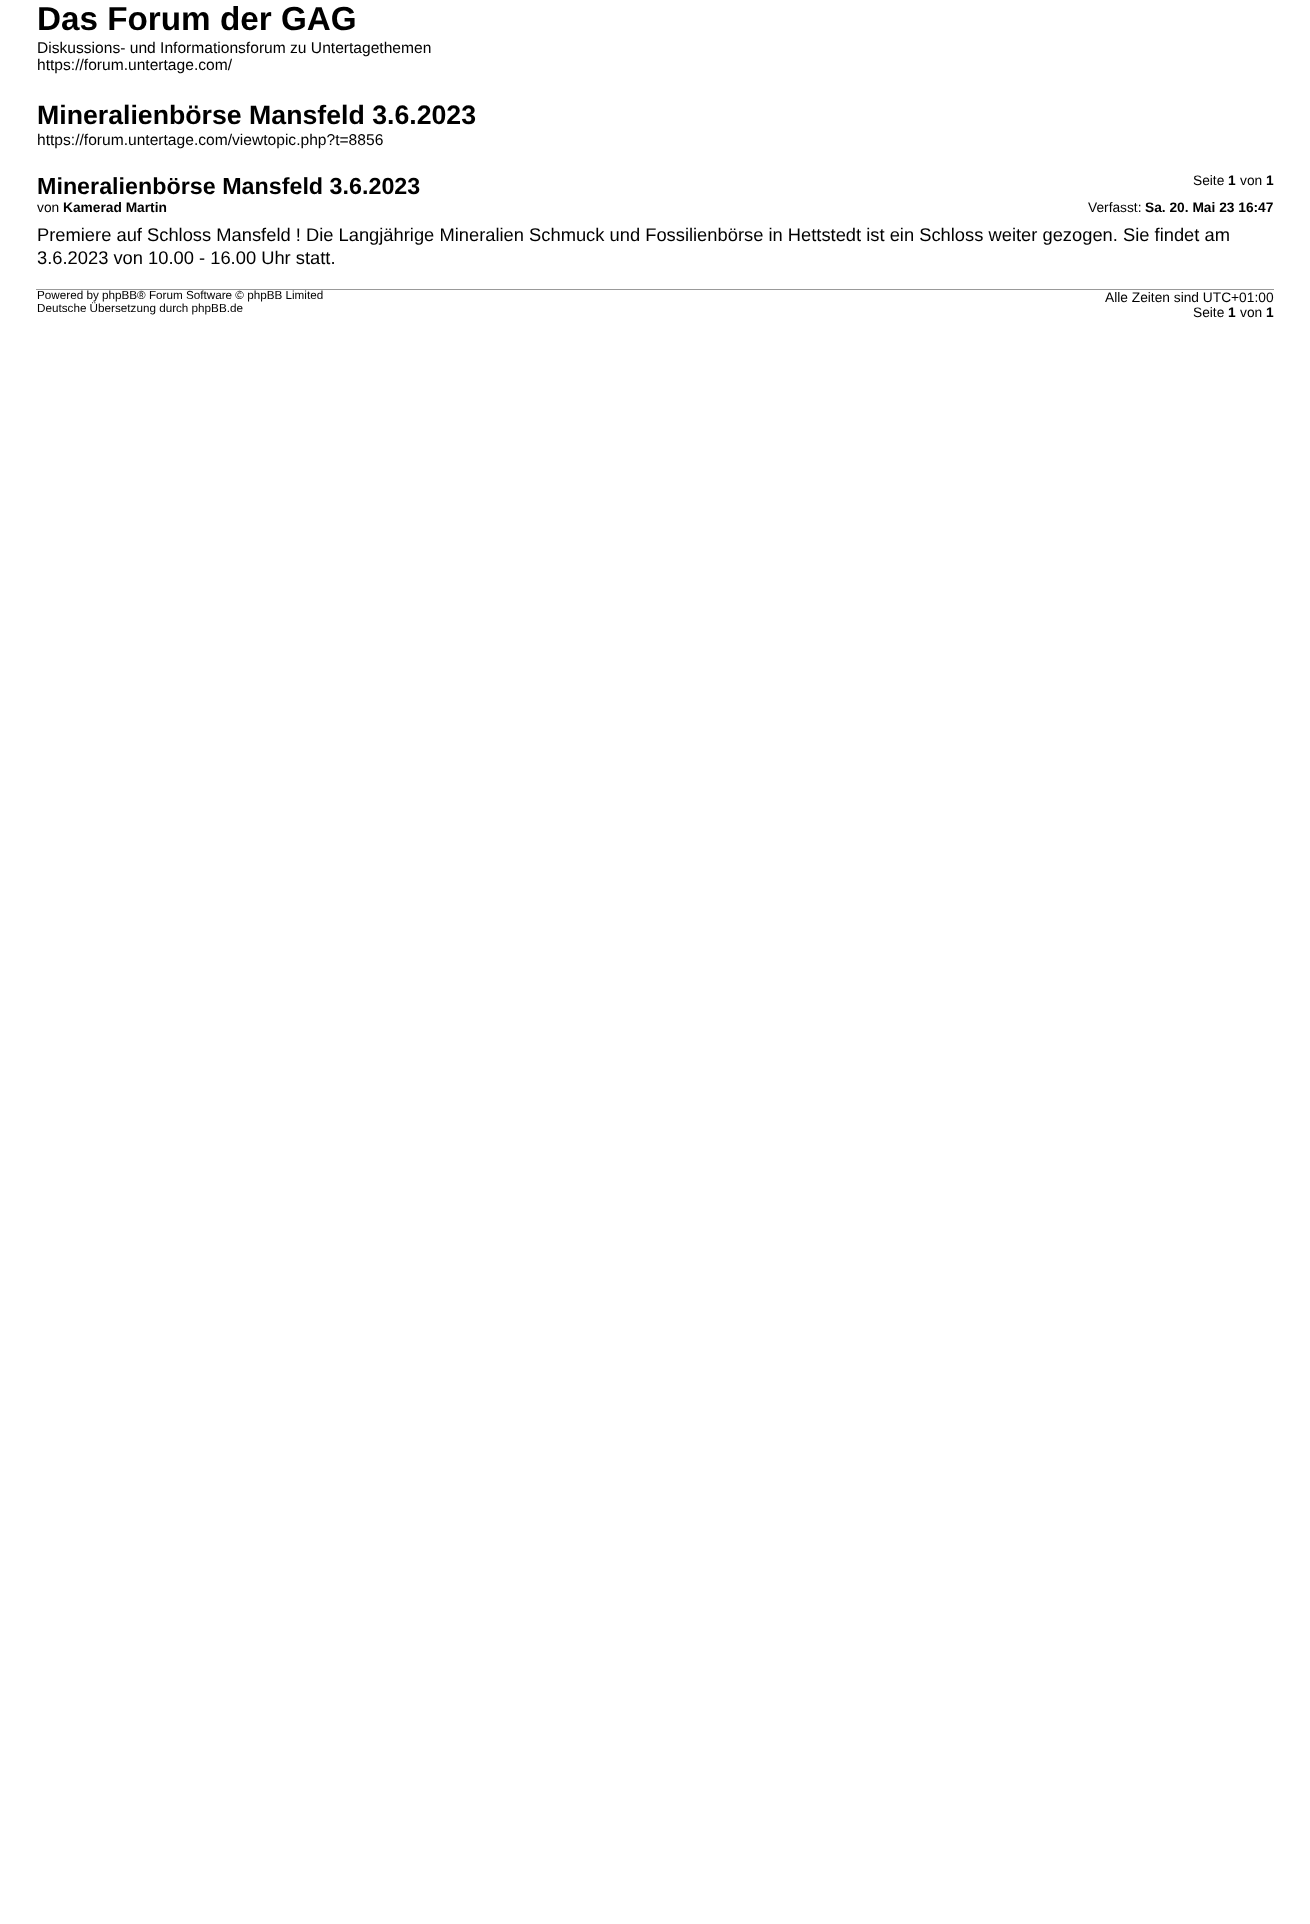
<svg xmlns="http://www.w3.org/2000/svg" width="1310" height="1924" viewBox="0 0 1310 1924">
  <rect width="100%" height="100%" fill="rgb(255,255,255)"/>
  <text x="37" y="30" font-family="Liberation Sans" font-size="33.25" font-weight="bold" fill="rgb(0,0,0)">Das Forum der GAG</text>
  <g font-family="Liberation Sans" font-size="15.6" fill="rgb(0,0,0)">
    <text>
      <tspan x="37" y="53">Diskussions- und Informationsforum zu Untertagethemen</tspan>
      <tspan x="37" y="70">https://forum.untertage.com/</tspan>
    </text>
  </g>
  <text x="37" y="124" font-family="Liberation Sans" font-size="26.7" font-weight="bold" fill="rgb(0,0,0)">Mineralienbörse Mansfeld 3.6.2023</text>
  <text x="37" y="145" font-family="Liberation Sans" font-size="15.6" fill="rgb(0,0,0)">https://forum.untertage.com/viewtopic.php?t=8856</text>
  <text x="1193" y="185" font-family="Liberation Sans" font-size="13.75" fill="rgb(0,0,0)">Seite</text>
  <text x="1228" y="185" font-family="Liberation Sans" font-size="13.75" font-weight="bold" fill="rgb(0,0,0)">1</text>
  <text x="1240" y="185" font-family="Liberation Sans" font-size="13.75" fill="rgb(0,0,0)">von</text>
  <text x="1266" y="185" font-family="Liberation Sans" font-size="13.75" font-weight="bold" fill="rgb(0,0,0)">1</text>
  <text x="37" y="194" font-family="Liberation Sans" font-size="23.3" font-weight="bold" fill="rgb(0,0,0)">Mineralienbörse Mansfeld 3.6.2023</text>
  <text x="37" y="212" font-family="Liberation Sans" font-size="13.75" fill="rgb(0,0,0)">von</text>
  <text x="63" y="212" font-family="Liberation Sans" font-size="13.75" font-weight="bold" fill="rgb(0,0,0)">Kamerad Martin</text>
  <text x="1088" y="212" font-family="Liberation Sans" font-size="13.75" fill="rgb(0,0,0)">Verfasst:</text>
  <text x="1145" y="212" font-family="Liberation Sans" font-size="13.75" font-weight="bold" fill="rgb(0,0,0)">Sa. 20. Mai 23 16:47</text>
  <g font-family="Liberation Sans" font-size="18.33" fill="rgb(0,0,0)">
    <text>
      <tspan x="37" y="241">Premiere auf Schloss Mansfeld ! Die Langjährige Mineralien Schmuck und Fossilienbörse in Hettstedt ist ein Schloss weiter gezogen. Sie findet am</tspan>
      <tspan x="37" y="264">3.6.2023 von 10.00 - 16.00 Uhr statt.</tspan>
    </text>
  </g>
  <rect x="36" y="289" width="1238" height="1" fill="rgb(153,153,153)"/>
  <g font-family="Liberation Sans" font-size="11.7" fill="rgb(0,0,0)">
    <text>
      <tspan x="37" y="299">Powered by phpBB® Forum Software © phpBB Limited</tspan>
      <tspan x="37" y="312">Deutsche Übersetzung durch phpBB.de</tspan>
    </text>
  </g>
  <g font-family="Liberation Sans" font-size="13.75" fill="rgb(0,0,0)">
    <text x="1105" y="302">Alle Zeiten sind UTC+01:00</text>
    <text x="1193" y="317">Seite</text>
  </g>
  <text x="1228" y="317" font-family="Liberation Sans" font-size="13.75" font-weight="bold" fill="rgb(0,0,0)">1</text>
  <text x="1240" y="317" font-family="Liberation Sans" font-size="13.75" fill="rgb(0,0,0)">von</text>
  <text x="1266" y="317" font-family="Liberation Sans" font-size="13.75" font-weight="bold" fill="rgb(0,0,0)">1</text>
</svg>
